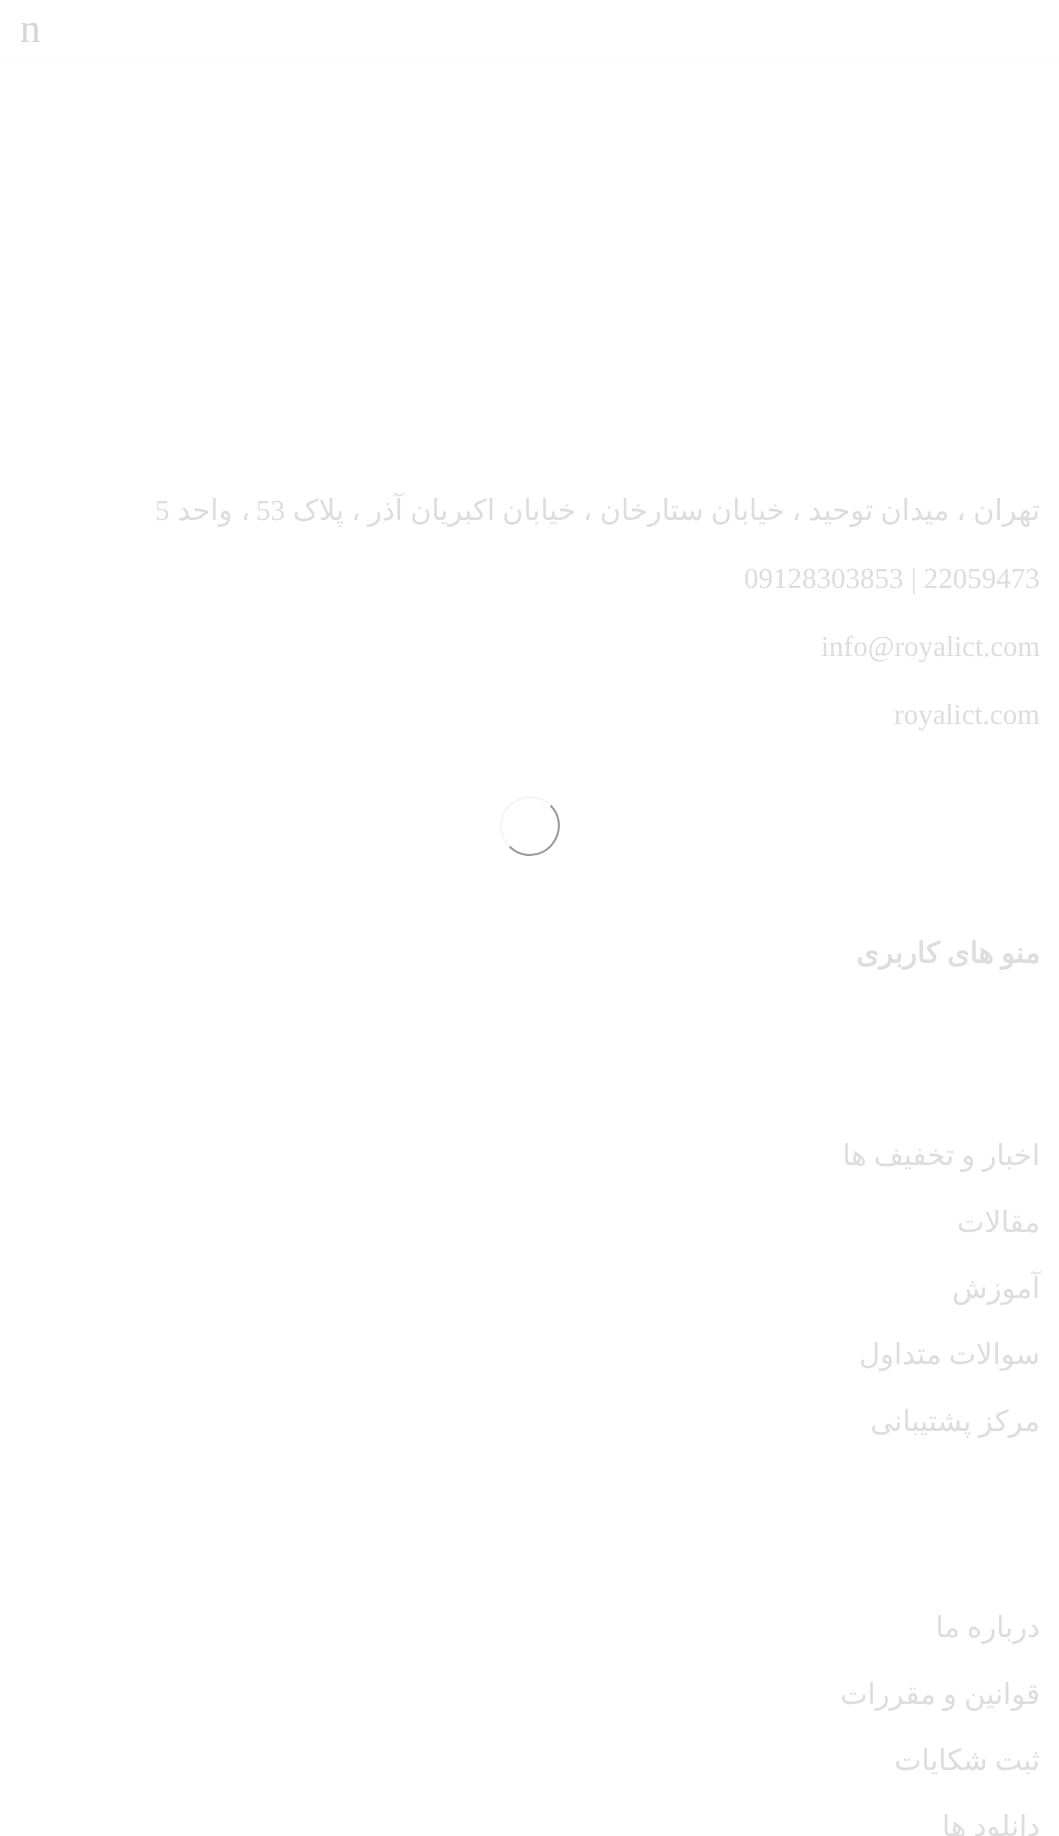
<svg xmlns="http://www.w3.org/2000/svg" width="1059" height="1836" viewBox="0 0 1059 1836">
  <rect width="100%" height="100%" fill="rgb(255,255,255)"/>
  <text x="20" y="42" font-family="Liberation Serif" font-size="41" fill="rgb(214,214,214)">n</text>
  <rect x="0" y="60" width="1059" height="2" fill="rgb(251,251,251)"/>
  <text x="1040" y="520" word-spacing="-2" font-family="DejaVu Sans" font-size="29" direction="rtl" fill="rgb(221,221,221)">تهران ، میدان توحید ، خیابان ستارخان ، خیابان اکبریان آذر ، پلاک</text>
  <text x="256" y="520" font-family="Liberation Serif" font-size="29" fill="rgb(221,221,221)">53</text>
  <text x="250" y="520" word-spacing="-1" font-family="DejaVu Sans" font-size="29" direction="rtl" fill="rgb(221,221,221)">، واحد</text>
  <g font-family="Liberation Serif" font-size="29" fill="rgb(221,221,221)">
    <text x="155" y="520">5</text>
    <text x="744" y="588">09128303853 | 22059473</text>
    <text x="821" y="656">info@royalict.com</text>
    <text x="894" y="724">royalict.com</text>
  </g>
  <text x="1040" y="963" word-spacing="-2" font-family="DejaVu Sans" font-size="29" font-weight="bold" direction="rtl" fill="rgb(221,221,221)">منو های کاربری</text>
  <g font-family="DejaVu Sans" font-size="29" direction="rtl" fill="rgb(221,221,221)">
    <text x="1040" y="1165" word-spacing="-2">اخبار و تخفیف ها</text>
    <text x="1040" y="1232">مقالات</text>
    <text x="1040" y="1298">آموزش</text>
    <text x="1040" y="1364" word-spacing="-2">سوالات متداول</text>
    <text x="1040" y="1431" word-spacing="-2">مرکز پشتیبانی</text>
    <text x="1040" y="1637" word-spacing="-2">درباره ما</text>
    <text x="1040" y="1704" word-spacing="-2">قوانین و مقررات</text>
    <text x="1040" y="1770" word-spacing="-2">ثبت شکایات</text>
    <text x="1040" y="1836" word-spacing="-2">دانلود ها</text>
  </g>
  <path d="M550.5 805.5C570.5 825.5 552 860 524.5 854.5C518.5 853.5 513.5 850.5 509.5 846.5" fill="none" stroke="rgb(154,154,154)" stroke-width="2"/>
  <path d="M509.5 846.5C505.5 842.5 502.5 837.5 501.5 831.5C496 804 530.5 785.5 550.5 805.5" fill="none" stroke="rgb(245,245,245)" stroke-width="2"/>
</svg>
